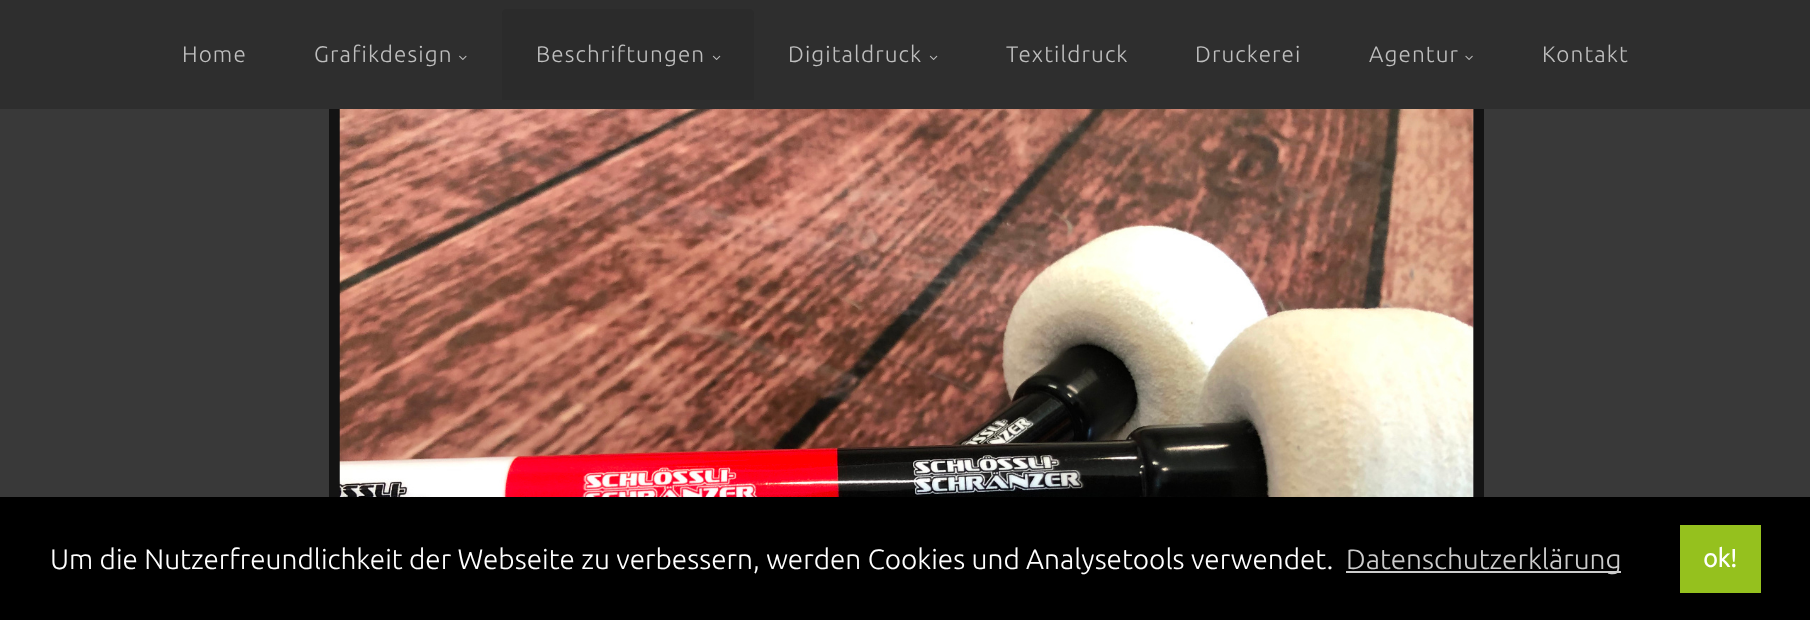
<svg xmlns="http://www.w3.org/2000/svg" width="1810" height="620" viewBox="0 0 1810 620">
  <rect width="100%" height="100%" fill="rgb(57,57,57)"/>
  <rect x="0" y="0" width="1810" height="109" fill="rgb(46,46,46)"/>
  <g font-family="Ubuntu" font-size="22.5" font-weight="300" letter-spacing="1.1" fill="rgb(190,190,190)">
    <text x="182" y="62">Home</text>
    <text x="314" y="62">Grafikdesign</text>
  </g>
  <image x="459" y="55" width="8" height="5" href="pic1.png"/>
  <path d="M507 9H749C752 9 754 11 754 14V100H502V14C502 11 504 9 507 9Z" fill="rgb(43,43,43)"/>
  <text x="536" y="62" font-family="Ubuntu" font-size="22.5" font-weight="300" letter-spacing="1.1" fill="rgb(190,190,190)">Beschriftungen</text>
  <image x="712" y="55" width="9" height="5" href="pic2.png"/>
  <text x="788" y="62" font-family="Ubuntu" font-size="22.5" font-weight="300" letter-spacing="1.1" fill="rgb(190,190,190)">Digitaldruck</text>
  <image x="929" y="55" width="9" height="5" href="pic3.png"/>
  <g font-family="Ubuntu" font-size="22.5" font-weight="300" letter-spacing="1.1" fill="rgb(190,190,190)">
    <text x="1006" y="62">Textildruck</text>
    <text x="1195" y="62">Druckerei</text>
    <text x="1369" y="62">Agentur</text>
  </g>
  <image x="1465" y="55" width="8" height="5" href="pic4.png"/>
  <text x="1542" y="62" font-family="Ubuntu" font-size="22.5" font-weight="300" letter-spacing="1.1" fill="rgb(190,190,190)">Kontakt</text>
  <rect x="329" y="109" width="1155" height="388" fill="rgb(19,19,19)"/>
  <rect x="1473" y="109" width="1" height="388" fill="rgb(44,44,44)"/>
  <image x="339" y="109" width="1135" height="388" href="pic5.png"/>
  <rect x="0" y="497" width="1810" height="123" fill="rgb(0,0,0)"/>
  <text x="50" y="569" font-family="Ubuntu" font-size="28" font-weight="300" fill="rgb(255,255,255)">Um die Nutzerfreundlichkeit der Webseite zu verbessern, werden Cookies und Analysetools verwendet.</text>
  <rect x="1346" y="571" width="275" height="2" fill="rgb(204,204,204)"/>
  <text x="1346" y="569" font-family="Ubuntu" font-size="28" font-weight="300" fill="rgb(204,204,204)">Datenschutzerklärung</text>
  <rect x="1680" y="525" width="81" height="68" fill="rgb(149,193,30)"/>
  <text x="1703" y="567" font-family="Ubuntu" font-size="25" font-weight="bold" fill="rgb(255,255,255)">ok!</text>
</svg>
